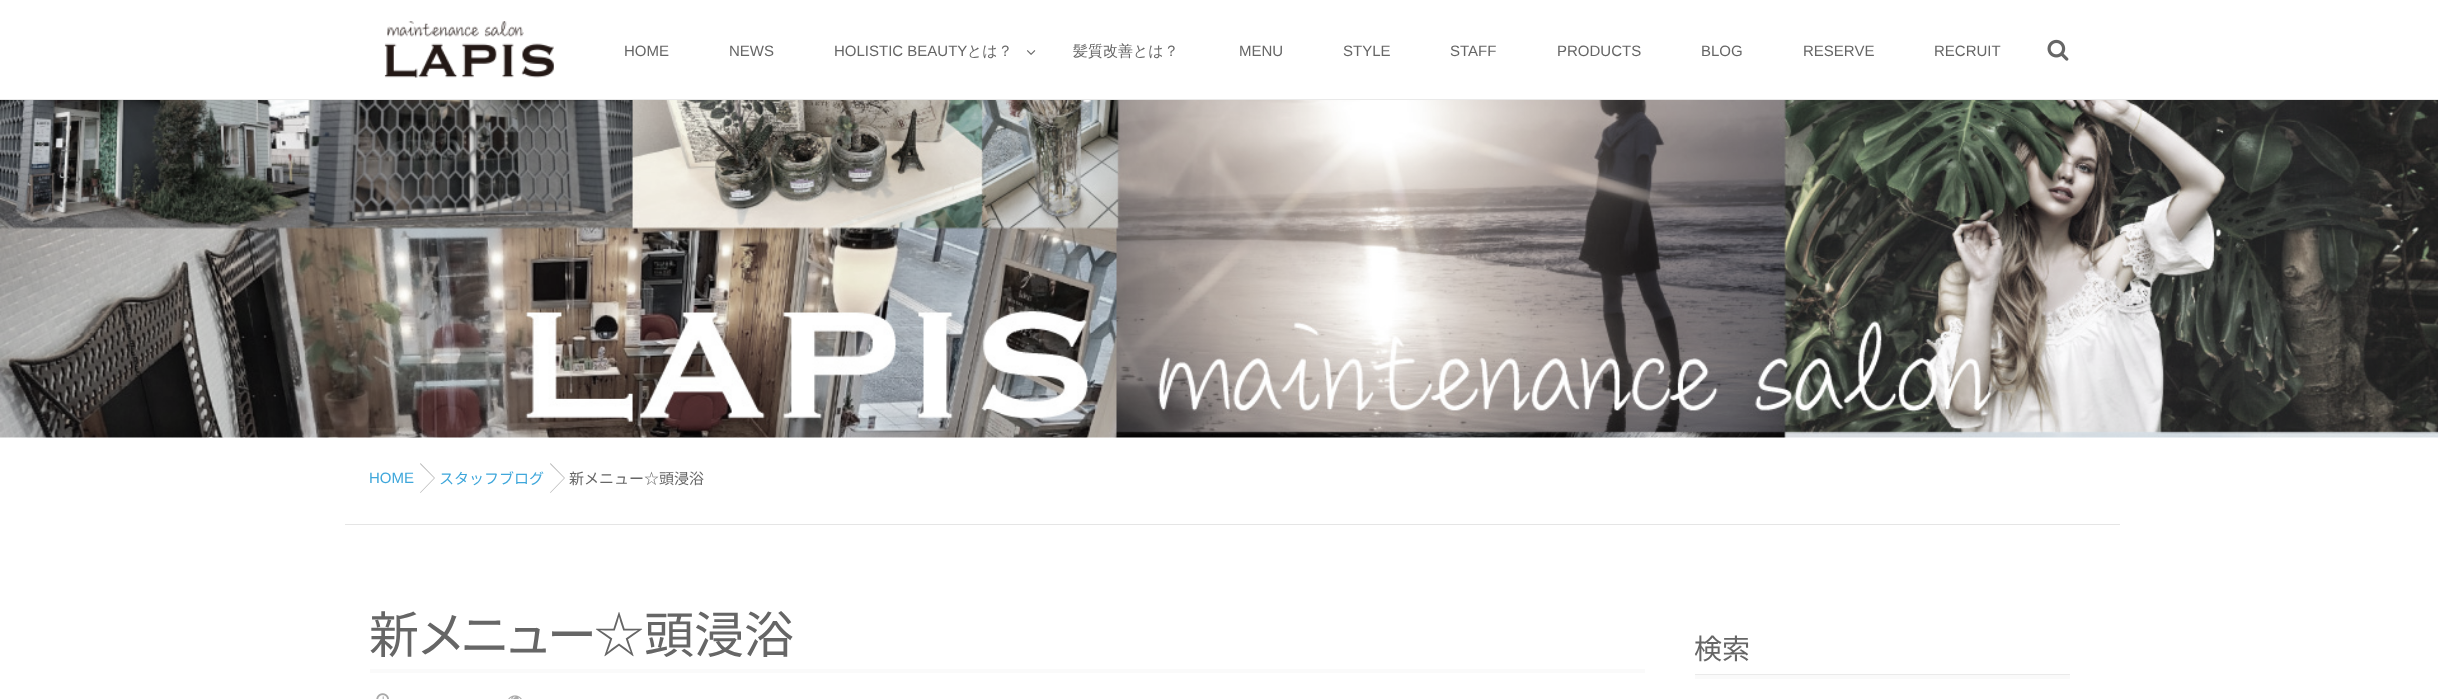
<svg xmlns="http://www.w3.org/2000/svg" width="2438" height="699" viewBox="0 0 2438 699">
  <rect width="100%" height="100%" fill="rgb(255,255,255)"/>
  <rect x="0" y="99" width="2438" height="1" fill="rgb(233,233,233)"/>
  <image x="384" y="21" width="170" height="57" href="pic1.png"/>
  <g font-family="Liberation Sans" font-size="15" fill="rgb(102,102,102)">
    <text x="624" y="56">HOME</text>
    <text x="729" y="56">NEWS</text>
    <text x="834" y="56">HOLISTIC BEAUTY</text>
  </g>
  <text x="967" y="56" font-family="WenQuanYi Zen Hei" font-size="15" font-weight="500" fill="rgb(102,102,102)">とは？</text>
  <image x="1026" y="50" width="10" height="5" href="pic2.png"/>
  <text x="1073" y="56" font-family="WenQuanYi Zen Hei" font-size="15" font-weight="500" fill="rgb(102,102,102)">髪質改善とは？</text>
  <g font-family="Liberation Sans" font-size="15" fill="rgb(102,102,102)">
    <text x="1239" y="56">MENU</text>
    <text x="1343" y="56">STYLE</text>
    <text x="1450" y="56">STAFF</text>
    <text x="1557" y="56">PRODUCTS</text>
    <text x="1701" y="56">BLOG</text>
    <text x="1803" y="56">RESERVE</text>
    <text x="1934" y="56">RECRUIT</text>
  </g>
  <image x="2047" y="39" width="22" height="22" href="pic3.png"/>
  <image x="0" y="100" width="2438" height="338" href="pic4.png"/>
  <rect x="345" y="524" width="1775" height="1" fill="rgb(229,229,229)"/>
  <text x="369" y="483" font-family="Liberation Sans" font-size="15" fill="rgb(63,167,219)">HOME</text>
  <path d="M420 464L434 478L420 492.5L420.5 493L435 478L420.5 463Z" fill="rgb(188,188,188)"/>
  <text x="439" y="484" font-family="Noto Sans JP" font-size="15" font-weight="100" fill="rgb(63,167,219)">スタッフブログ</text>
  <path d="M550 464L564 478L550 492.5L550.5 493L565 478L550.5 463Z" fill="rgb(188,188,188)"/>
  <text x="569" y="484" font-family="Noto Sans JP" font-size="15" font-weight="100" fill="rgb(102,102,102)">新メニュー☆頭浸浴</text>
  <rect x="370" y="669" width="1275" height="4" fill="rgb(250,250,250)"/>
  <text x="369" y="653" font-family="Noto Sans JP" font-size="50" font-weight="100" letter-spacing="-3" fill="rgb(102,102,102)">新</text>
  <text x="416" y="653" font-family="Noto Sans JP" font-size="50" font-weight="100" letter-spacing="-6" fill="rgb(102,102,102)">メ</text>
  <text x="460" y="653" font-family="Noto Sans JP" font-size="50" font-weight="100" letter-spacing="-7" fill="rgb(102,102,102)">ニ</text>
  <text x="503" y="653" font-family="Noto Sans JP" font-size="50" font-weight="100" letter-spacing="-6" fill="rgb(102,102,102)">ュ</text>
  <text x="547" y="653" font-family="Noto Sans JP" font-size="50" font-weight="100" letter-spacing="-3" fill="rgb(102,102,102)">ー</text>
  <text x="594" y="653" font-family="Noto Sans JP" font-size="50" font-weight="100" fill="rgb(102,102,102)">☆頭浸浴</text>
  <image x="376" y="693" width="13" height="6" href="pic5.png"/>
  <image x="508" y="695" width="14" height="4" href="pic6.png"/>
  <rect x="1695" y="675" width="375" height="4" fill="rgb(250,250,250)"/>
  <text x="1694" y="659" font-family="Noto Sans JP" font-size="28" font-weight="100" fill="rgb(102,102,102)">検索</text>
  <rect x="1695" y="674" width="375" height="1" fill="rgb(234,234,234)"/>
  <path d="M1695 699.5H2070" fill="none" stroke="rgb(221,221,221)" stroke-width="1.2" stroke-dasharray="1.25 1.25"/>
</svg>
